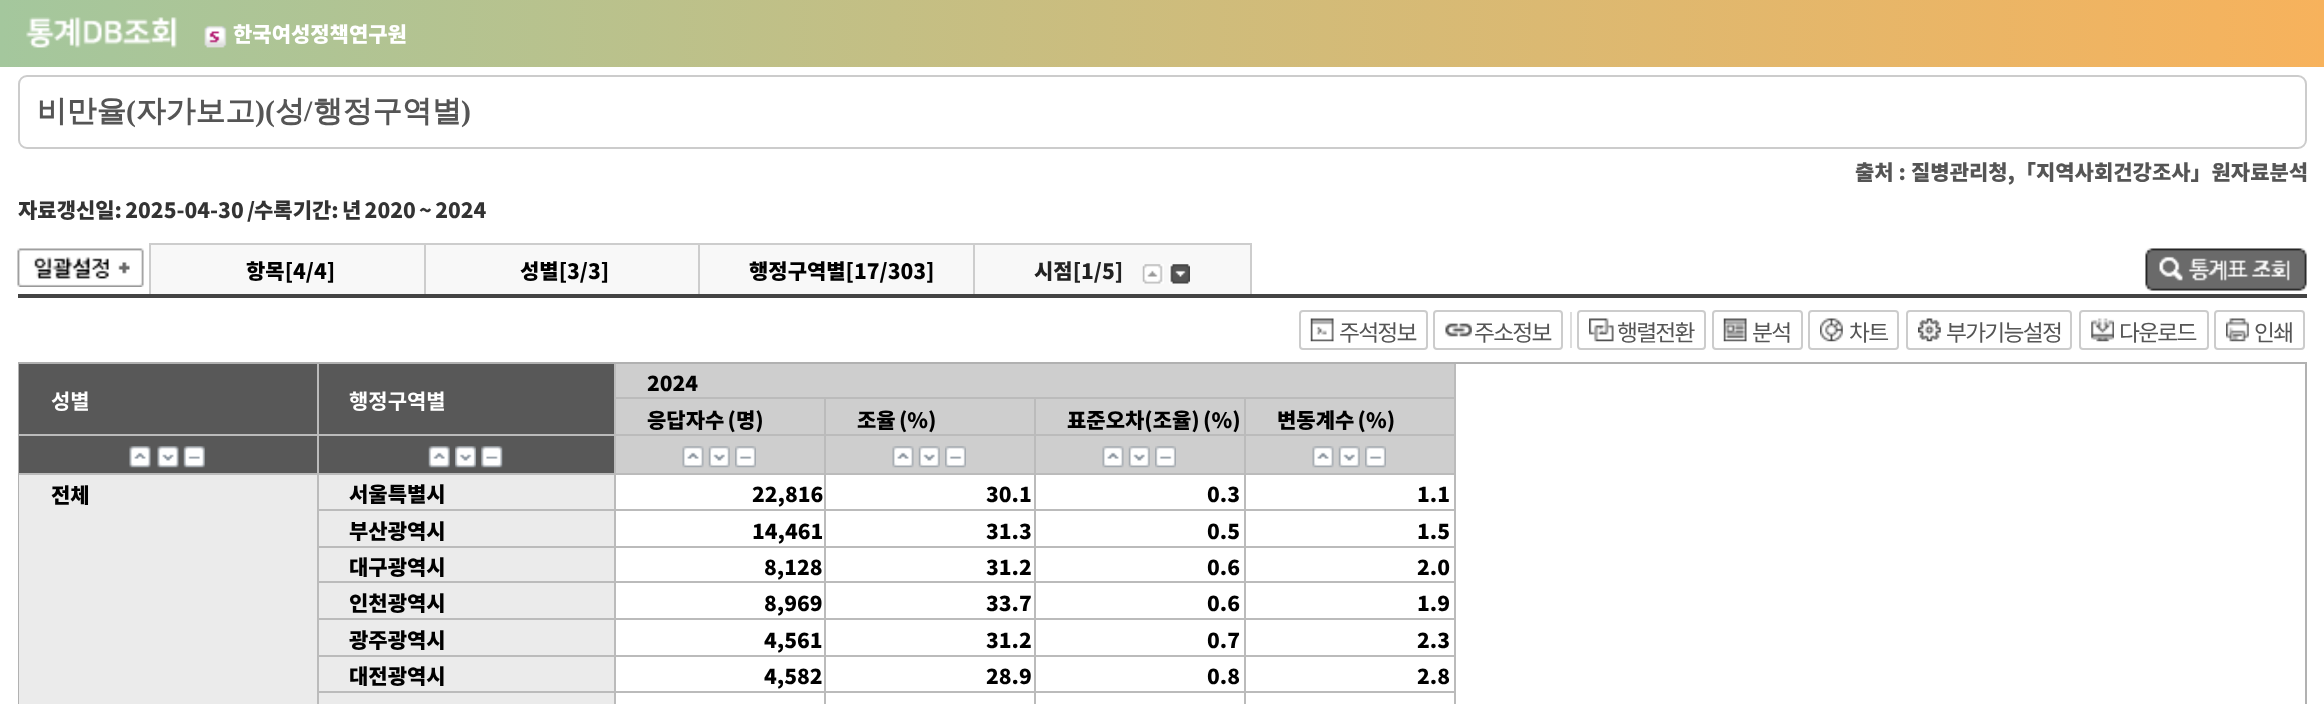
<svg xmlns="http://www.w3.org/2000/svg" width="2324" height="704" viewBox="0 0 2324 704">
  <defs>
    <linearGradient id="g1" gradientUnits="userSpaceOnUse" x1="0" y1="33" x2="2324" y2="33"><stop offset="0" stop-color="rgb(164,199,157)"/><stop offset="1" stop-color="rgb(247,178,92)"/></linearGradient>
  </defs>
  <rect width="100%" height="100%" fill="rgb(255,255,255)"/>
  <rect x="0" y="0" width="2324" height="67" fill="url(#g1)"/>
  <image x="26" y="17" width="151" height="31" href="pic1.png"/>
  <image x="204" y="25" width="23" height="23" href="pic2.png"/>
  <text x="233" y="42" font-family="Noto Sans KR" font-size="21" font-weight="900" fill="rgb(255,255,255)">한국여성정책연구원</text>
  <rect x="19" y="76" width="2287" height="72" rx="8" fill="none" stroke="rgb(204,204,204)" stroke-width="2"/>
  <text x="37" y="121" font-family="WenQuanYi Zen Hei" font-size="29.75" font-weight="bold" fill="rgb(85,85,85)">비만율</text>
  <text x="126" y="121" font-family="Liberation Serif" font-size="29.75" font-weight="bold" fill="rgb(85,85,85)">(</text>
  <text x="136" y="121" font-family="WenQuanYi Zen Hei" font-size="29.75" font-weight="bold" fill="rgb(85,85,85)">자가보고</text>
  <text x="255" y="121" font-family="Liberation Serif" font-size="29.75" font-weight="bold" fill="rgb(85,85,85)">)(</text>
  <text x="275" y="121" font-family="WenQuanYi Zen Hei" font-size="29.75" font-weight="bold" fill="rgb(85,85,85)">성</text>
  <text x="304" y="121" font-family="Liberation Serif" font-size="29.75" font-weight="bold" fill="rgb(85,85,85)">/</text>
  <text x="313" y="121" font-family="WenQuanYi Zen Hei" font-size="29.75" font-weight="bold" fill="rgb(85,85,85)">행정구역별</text>
  <text x="461" y="121" font-family="Liberation Serif" font-size="29.75" font-weight="bold" fill="rgb(85,85,85)">)</text>
  <g font-family="Noto Sans KR" font-size="21" font-weight="900" fill="rgb(85,85,85)">
    <text x="1855" y="180">출처 :</text>
    <text x="1911" y="180">질병관리청,「지역사회건강조사」원자료분석</text>
  </g>
  <g font-family="Noto Sans KR" font-size="21" font-weight="900" fill="rgb(51,51,51)">
    <text x="18" y="218" word-spacing="-1.5">자료갱신일: 2025-04-30 /</text>
    <text x="254" y="218" word-spacing="-1.5">수록기간: 년 2020 ~ 2024</text>
  </g>
  <rect x="18" y="294" width="2289" height="4" fill="rgb(68,68,68)"/>
  <image x="17" y="248" width="127" height="39" href="pic3.png"/>
  <rect x="151" y="245" width="273" height="49" fill="rgb(248,248,248)"/>
  <rect x="149" y="243" width="1102" height="2" fill="rgb(205,205,205)"/>
  <rect x="149" y="243" width="2" height="51" fill="rgb(205,205,205)"/>
  <text x="246" y="279" font-family="Noto Sans KR" font-size="21" font-weight="900" fill="rgb(0,0,0)">항목[4/4]</text>
  <rect x="426" y="245" width="272" height="49" fill="rgb(248,248,248)"/>
  <rect x="424" y="243" width="2" height="51" fill="rgb(205,205,205)"/>
  <text x="520" y="279" font-family="Noto Sans KR" font-size="21" font-weight="900" fill="rgb(0,0,0)">성별[3/3]</text>
  <rect x="700" y="245" width="273" height="49" fill="rgb(248,248,248)"/>
  <rect x="698" y="243" width="2" height="51" fill="rgb(205,205,205)"/>
  <text x="749" y="279" font-family="Noto Sans KR" font-size="21" font-weight="900" fill="rgb(0,0,0)">행정구역별[17/303]</text>
  <rect x="975" y="245" width="275" height="49" fill="rgb(248,248,248)"/>
  <rect x="1250" y="243" width="2" height="51" fill="rgb(205,205,205)"/>
  <rect x="973" y="243" width="2" height="51" fill="rgb(205,205,205)"/>
  <text x="1034" y="279" font-family="Noto Sans KR" font-size="21" font-weight="900" fill="rgb(34,34,34)">시점[1/5]</text>
  <image x="1142" y="264" width="22" height="20" href="pic4.png"/>
  <image x="1169" y="264" width="21" height="20" href="pic5.png"/>
  <image x="2145" y="248" width="162" height="43" href="pic6.png"/>
  <rect x="1300" y="311" width="127" height="38" rx="3" fill="none" stroke="rgb(204,204,204)" stroke-width="2"/>
  <image x="1310" y="318" width="24" height="24" href="pic7.png"/>
  <text x="1339" y="341" font-family="Noto Sans KR" font-size="22.75" letter-spacing="-1.75" fill="rgb(85,85,85)">주석정보</text>
  <rect x="1434" y="311" width="128" height="38" rx="3" fill="none" stroke="rgb(204,204,204)" stroke-width="2"/>
  <image x="1445" y="323" width="27" height="14" href="pic8.png"/>
  <text x="1474" y="341" font-family="Noto Sans KR" font-size="22.75" letter-spacing="-1.75" fill="rgb(85,85,85)">주소정보</text>
  <rect x="1570" y="312" width="2" height="36" fill="rgb(221,221,221)"/>
  <rect x="1578" y="311" width="127" height="38" rx="3" fill="none" stroke="rgb(204,204,204)" stroke-width="2"/>
  <image x="1589" y="318" width="25" height="24" href="pic9.png"/>
  <text x="1617" y="341" font-family="Noto Sans KR" font-size="22.75" letter-spacing="-1.75" fill="rgb(85,85,85)">행렬전환</text>
  <rect x="1713" y="311" width="89" height="38" rx="3" fill="none" stroke="rgb(204,204,204)" stroke-width="2"/>
  <image x="1723" y="318" width="24" height="24" href="pic10.png"/>
  <text x="1752" y="341" font-family="Noto Sans KR" font-size="22.75" letter-spacing="-1.75" fill="rgb(85,85,85)">분석</text>
  <rect x="1809" y="311" width="89" height="38" rx="3" fill="none" stroke="rgb(204,204,204)" stroke-width="2"/>
  <image x="1820" y="318" width="23" height="24" href="pic11.png"/>
  <text x="1849" y="341" font-family="Noto Sans KR" font-size="22.75" letter-spacing="-1.75" fill="rgb(85,85,85)">차트</text>
  <rect x="1907" y="311" width="164" height="38" rx="3" fill="none" stroke="rgb(204,204,204)" stroke-width="2"/>
  <image x="1918" y="318" width="23" height="24" href="pic12.png"/>
  <text x="1946" y="341" font-family="Noto Sans KR" font-size="22.75" letter-spacing="-1.75" fill="rgb(85,85,85)">부가기능설정</text>
  <rect x="2080" y="311" width="128" height="38" rx="3" fill="none" stroke="rgb(204,204,204)" stroke-width="2"/>
  <image x="2091" y="318" width="23" height="24" href="pic13.png"/>
  <text x="2119" y="341" font-family="Noto Sans KR" font-size="22.75" letter-spacing="-1.75" fill="rgb(85,85,85)">다운로드</text>
  <rect x="2215" y="311" width="89" height="38" rx="3" fill="none" stroke="rgb(204,204,204)" stroke-width="2"/>
  <image x="2226" y="318" width="23" height="24" href="pic14.png"/>
  <text x="2254" y="341" font-family="Noto Sans KR" font-size="22.75" letter-spacing="-1.75" fill="rgb(85,85,85)">인쇄</text>
  <rect x="19" y="363" width="2287" height="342" fill="none" stroke="rgb(177,177,177)" stroke-width="2"/>
  <rect x="616" y="364" width="838" height="33" fill="rgb(206,206,206)"/>
  <rect x="19" y="473" width="1437" height="2" fill="rgb(187,187,187)"/>
  <rect x="317" y="509" width="1139" height="2" fill="rgb(187,187,187)"/>
  <rect x="317" y="546" width="1139" height="2" fill="rgb(187,187,187)"/>
  <rect x="317" y="581" width="1139" height="2" fill="rgb(187,187,187)"/>
  <rect x="317" y="618" width="1139" height="2" fill="rgb(187,187,187)"/>
  <rect x="317" y="655" width="1139" height="2" fill="rgb(187,187,187)"/>
  <rect x="317" y="691" width="1139" height="2" fill="rgb(187,187,187)"/>
  <rect x="1244" y="691" width="2" height="13" fill="rgb(187,187,187)"/>
  <rect x="1244" y="655" width="2" height="38" fill="rgb(187,187,187)"/>
  <rect x="1244" y="618" width="2" height="38" fill="rgb(187,187,187)"/>
  <rect x="1244" y="581" width="2" height="39" fill="rgb(187,187,187)"/>
  <rect x="1244" y="546" width="2" height="37" fill="rgb(187,187,187)"/>
  <rect x="1244" y="509" width="2" height="39" fill="rgb(187,187,187)"/>
  <rect x="1244" y="434" width="2" height="77" fill="rgb(187,187,187)"/>
  <rect x="1454" y="691" width="2" height="13" fill="rgb(187,187,187)"/>
  <rect x="1454" y="655" width="2" height="38" fill="rgb(187,187,187)"/>
  <rect x="1454" y="618" width="2" height="38" fill="rgb(187,187,187)"/>
  <rect x="1454" y="581" width="2" height="39" fill="rgb(187,187,187)"/>
  <rect x="1454" y="546" width="2" height="37" fill="rgb(187,187,187)"/>
  <rect x="1454" y="509" width="2" height="39" fill="rgb(187,187,187)"/>
  <rect x="1454" y="364" width="2" height="147" fill="rgb(187,187,187)"/>
  <rect x="1244" y="434" width="212" height="2" fill="rgb(187,187,187)"/>
  <rect x="1244" y="397" width="2" height="39" fill="rgb(187,187,187)"/>
  <rect x="1034" y="691" width="2" height="13" fill="rgb(187,187,187)"/>
  <rect x="1034" y="655" width="2" height="38" fill="rgb(187,187,187)"/>
  <rect x="1034" y="618" width="2" height="38" fill="rgb(187,187,187)"/>
  <rect x="1034" y="581" width="2" height="39" fill="rgb(187,187,187)"/>
  <rect x="1034" y="546" width="2" height="37" fill="rgb(187,187,187)"/>
  <rect x="1034" y="509" width="2" height="39" fill="rgb(187,187,187)"/>
  <rect x="1034" y="434" width="2" height="77" fill="rgb(187,187,187)"/>
  <rect x="1034" y="434" width="212" height="2" fill="rgb(187,187,187)"/>
  <rect x="1034" y="397" width="2" height="39" fill="rgb(187,187,187)"/>
  <rect x="824" y="691" width="2" height="13" fill="rgb(187,187,187)"/>
  <rect x="824" y="655" width="2" height="38" fill="rgb(187,187,187)"/>
  <rect x="824" y="618" width="2" height="38" fill="rgb(187,187,187)"/>
  <rect x="824" y="581" width="2" height="39" fill="rgb(187,187,187)"/>
  <rect x="824" y="546" width="2" height="37" fill="rgb(187,187,187)"/>
  <rect x="824" y="509" width="2" height="39" fill="rgb(187,187,187)"/>
  <rect x="824" y="434" width="2" height="77" fill="rgb(187,187,187)"/>
  <rect x="824" y="434" width="212" height="2" fill="rgb(187,187,187)"/>
  <rect x="824" y="397" width="2" height="39" fill="rgb(187,187,187)"/>
  <rect x="614" y="397" width="842" height="2" fill="rgb(187,187,187)"/>
  <text x="647" y="391" font-family="Noto Sans KR" font-size="21" font-weight="900" fill="rgb(0,0,0)">2024</text>
  <rect x="19" y="364" width="298" height="70" fill="rgb(88,88,88)"/>
  <rect x="614" y="691" width="2" height="13" fill="rgb(187,187,187)"/>
  <rect x="614" y="655" width="2" height="38" fill="rgb(187,187,187)"/>
  <rect x="614" y="618" width="2" height="38" fill="rgb(187,187,187)"/>
  <rect x="614" y="581" width="2" height="39" fill="rgb(187,187,187)"/>
  <rect x="614" y="546" width="2" height="37" fill="rgb(187,187,187)"/>
  <rect x="614" y="509" width="2" height="39" fill="rgb(187,187,187)"/>
  <rect x="614" y="434" width="2" height="77" fill="rgb(187,187,187)"/>
  <rect x="614" y="434" width="212" height="2" fill="rgb(187,187,187)"/>
  <rect x="614" y="364" width="2" height="72" fill="rgb(187,187,187)"/>
  <rect x="317" y="691" width="2" height="13" fill="rgb(187,187,187)"/>
  <rect x="317" y="655" width="2" height="38" fill="rgb(187,187,187)"/>
  <rect x="317" y="618" width="2" height="38" fill="rgb(187,187,187)"/>
  <rect x="317" y="581" width="2" height="39" fill="rgb(187,187,187)"/>
  <rect x="317" y="546" width="2" height="37" fill="rgb(187,187,187)"/>
  <rect x="317" y="509" width="2" height="39" fill="rgb(187,187,187)"/>
  <rect x="317" y="434" width="2" height="77" fill="rgb(187,187,187)"/>
  <rect x="317" y="434" width="299" height="2" fill="rgb(187,187,187)"/>
  <rect x="317" y="364" width="2" height="72" fill="rgb(187,187,187)"/>
  <rect x="19" y="434" width="300" height="2" fill="rgb(187,187,187)"/>
  <text x="51" y="409" font-family="Noto Sans KR" font-size="21" font-weight="bold" fill="rgb(255,255,255)">성별</text>
  <rect x="319" y="364" width="295" height="70" fill="rgb(88,88,88)"/>
  <text x="349" y="409" font-family="Noto Sans KR" font-size="21" font-weight="bold" fill="rgb(255,255,255)">행정구역별</text>
  <rect x="616" y="399" width="208" height="35" fill="rgb(206,206,206)"/>
  <text x="647" y="428" word-spacing="-1.5" font-family="Noto Sans KR" font-size="21" font-weight="900" fill="rgb(0,0,0)">응답자수 (명)</text>
  <rect x="826" y="399" width="208" height="35" fill="rgb(206,206,206)"/>
  <text x="857" y="428" word-spacing="-1.5" font-family="Noto Sans KR" font-size="21" font-weight="900" fill="rgb(0,0,0)">조율 (%)</text>
  <rect x="1036" y="399" width="208" height="35" fill="rgb(206,206,206)"/>
  <text x="1067" y="428" word-spacing="-1.5" font-family="Noto Sans KR" font-size="21" font-weight="900" fill="rgb(0,0,0)">표준오차(조율) (%)</text>
  <rect x="1246" y="399" width="208" height="35" fill="rgb(206,206,206)"/>
  <text x="1277" y="428" word-spacing="-1.5" font-family="Noto Sans KR" font-size="21" font-weight="900" fill="rgb(0,0,0)">변동계수 (%)</text>
  <rect x="19" y="436" width="298" height="37" fill="rgb(88,88,88)"/>
  <image x="129" y="446" width="22" height="22" href="pic15.png"/>
  <image x="157" y="446" width="22" height="22" href="pic16.png"/>
  <image x="183" y="446" width="22" height="22" href="pic17.png"/>
  <rect x="319" y="436" width="295" height="37" fill="rgb(88,88,88)"/>
  <image x="428" y="446" width="22" height="22" href="pic18.png"/>
  <image x="455" y="446" width="21" height="22" href="pic19.png"/>
  <image x="481" y="446" width="22" height="22" href="pic20.png"/>
  <rect x="616" y="436" width="208" height="37" fill="rgb(206,206,206)"/>
  <image x="682" y="446" width="22" height="22" href="pic21.png"/>
  <image x="708" y="446" width="22" height="22" href="pic22.png"/>
  <image x="735" y="446" width="21" height="22" href="pic23.png"/>
  <rect x="826" y="436" width="208" height="37" fill="rgb(206,206,206)"/>
  <image x="892" y="446" width="22" height="22" href="pic24.png"/>
  <image x="918" y="446" width="22" height="22" href="pic25.png"/>
  <image x="945" y="446" width="21" height="22" href="pic23.png"/>
  <rect x="1036" y="436" width="208" height="37" fill="rgb(206,206,206)"/>
  <image x="1102" y="446" width="22" height="22" href="pic21.png"/>
  <image x="1128" y="446" width="22" height="22" href="pic25.png"/>
  <image x="1155" y="446" width="21" height="22" href="pic23.png"/>
  <rect x="1246" y="436" width="208" height="37" fill="rgb(206,206,206)"/>
  <image x="1312" y="446" width="22" height="22" href="pic26.png"/>
  <image x="1338" y="446" width="22" height="22" href="pic22.png"/>
  <image x="1365" y="446" width="21" height="22" href="pic23.png"/>
  <rect x="19" y="475" width="298" height="229" fill="rgb(235,235,235)"/>
  <text x="51" y="503" font-family="Noto Sans KR" font-size="21" font-weight="900" fill="rgb(0,0,0)">전체</text>
  <rect x="319" y="475" width="295" height="34" fill="rgb(235,235,235)"/>
  <g font-family="Noto Sans KR" font-size="21" font-weight="900" fill="rgb(0,0,0)">
    <text x="349" y="502">서울특별시</text>
    <text x="752" y="502">22,816</text>
    <text x="986" y="502">30.1</text>
    <text x="1207" y="502">0.3</text>
    <text x="1417" y="502">1.1</text>
  </g>
  <rect x="319" y="511" width="295" height="35" fill="rgb(235,235,235)"/>
  <g font-family="Noto Sans KR" font-size="21" font-weight="900" fill="rgb(0,0,0)">
    <text x="349" y="539">부산광역시</text>
    <text x="752" y="539">14,461</text>
    <text x="986" y="539">31.3</text>
    <text x="1207" y="539">0.5</text>
    <text x="1417" y="539">1.5</text>
  </g>
  <rect x="319" y="548" width="295" height="33" fill="rgb(235,235,235)"/>
  <g font-family="Noto Sans KR" font-size="21" font-weight="900" fill="rgb(0,0,0)">
    <text x="349" y="575">대구광역시</text>
    <text x="764" y="575">8,128</text>
    <text x="986" y="575">31.2</text>
    <text x="1207" y="575">0.6</text>
    <text x="1417" y="575">2.0</text>
  </g>
  <rect x="319" y="583" width="295" height="35" fill="rgb(235,235,235)"/>
  <g font-family="Noto Sans KR" font-size="21" font-weight="900" fill="rgb(0,0,0)">
    <text x="349" y="611">인천광역시</text>
    <text x="764" y="611">8,969</text>
    <text x="986" y="611">33.7</text>
    <text x="1207" y="611">0.6</text>
    <text x="1417" y="611">1.9</text>
  </g>
  <rect x="319" y="620" width="295" height="35" fill="rgb(235,235,235)"/>
  <g font-family="Noto Sans KR" font-size="21" font-weight="900" fill="rgb(0,0,0)">
    <text x="349" y="648">광주광역시</text>
    <text x="764" y="648">4,561</text>
    <text x="986" y="648">31.2</text>
    <text x="1207" y="648">0.7</text>
    <text x="1417" y="648">2.3</text>
  </g>
  <rect x="319" y="657" width="295" height="34" fill="rgb(235,235,235)"/>
  <g font-family="Noto Sans KR" font-size="21" font-weight="900" fill="rgb(0,0,0)">
    <text x="349" y="684">대전광역시</text>
    <text x="764" y="684">4,582</text>
    <text x="986" y="684">28.9</text>
    <text x="1207" y="684">0.8</text>
    <text x="1417" y="684">2.8</text>
  </g>
  <rect x="319" y="693" width="295" height="11" fill="rgb(235,235,235)"/>
</svg>
